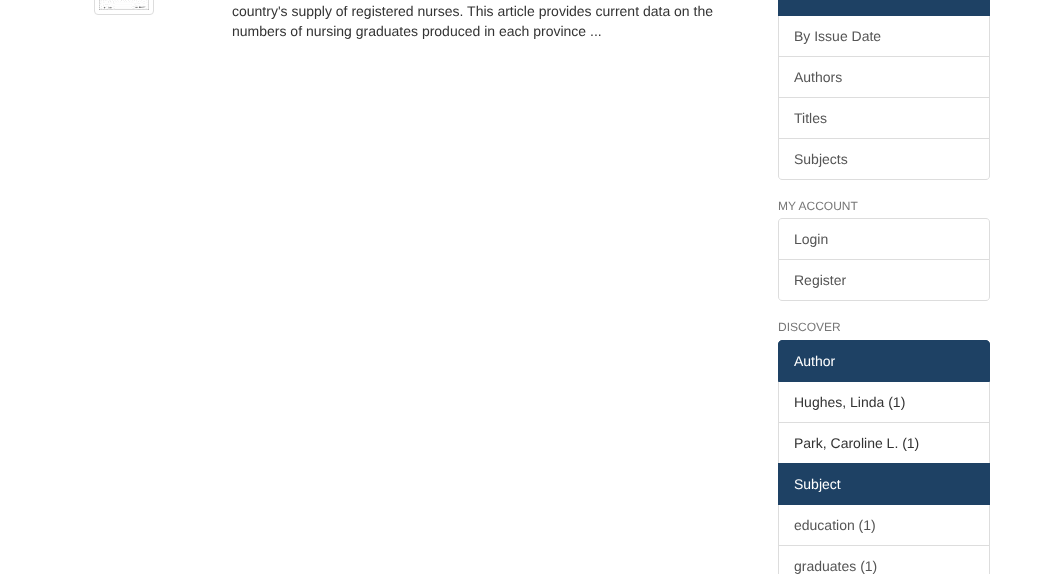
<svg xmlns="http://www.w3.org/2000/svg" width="1040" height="574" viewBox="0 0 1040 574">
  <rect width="100%" height="100%" fill="rgb(255,255,255)"/>
  <rect x="94.5" y="-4.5" width="59" height="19" rx="3.5" fill="none" stroke="rgb(221,221,221)"/>
  <image x="99" y="0" width="50" height="10" href="pic1.png"/>
  <g font-family="Liberation Sans" font-size="14" fill="rgb(51,51,51)">
    <text>
      <tspan x="232" y="16">country's supply of registered nurses. This article provides current data on the</tspan>
      <tspan x="232" y="36">numbers of nursing graduates produced in each province ...</tspan>
    </text>
  </g>
  <rect x="778.5" y="15.5" width="211" height="41" fill="none" stroke="rgb(221,221,221)"/>
  <rect x="778" y="0" width="212" height="16" fill="rgb(30,65,100)"/>
  <text x="794" y="41" font-family="Liberation Sans" font-size="14" fill="rgb(85,85,85)">By Issue Date</text>
  <rect x="778.5" y="56.5" width="211" height="41" fill="none" stroke="rgb(221,221,221)"/>
  <text x="794" y="82" font-family="Liberation Sans" font-size="14" fill="rgb(85,85,85)">Authors</text>
  <rect x="778.5" y="97.5" width="211" height="41" fill="none" stroke="rgb(221,221,221)"/>
  <text x="794" y="123" font-family="Liberation Sans" font-size="14" fill="rgb(85,85,85)">Titles</text>
  <path d="M778.5 138.5H989.5V176C989.5 178 988 179.5 986 179.5H782C780 179.5 778.5 178 778.5 176Z" fill="rgb(255,255,255)" stroke="rgb(221,221,221)"/>
  <text x="794" y="164" font-family="Liberation Sans" font-size="14" fill="rgb(85,85,85)">Subjects</text>
  <text x="778" y="210" font-family="Liberation Sans" font-size="12" fill="rgb(119,119,119)">MY ACCOUNT</text>
  <path d="M782 218.5H986C988 218.5 989.5 220 989.5 222V259.5H778.5V222C778.5 220 780 218.5 782 218.5Z" fill="none" stroke="rgb(221,221,221)"/>
  <text x="794" y="244" font-family="Liberation Sans" font-size="14" fill="rgb(85,85,85)">Login</text>
  <path d="M778.5 259.5H989.5V297C989.5 299 988 300.5 986 300.5H782C780 300.5 778.5 299 778.5 297Z" fill="rgb(255,255,255)" stroke="rgb(221,221,221)"/>
  <text x="794" y="285" font-family="Liberation Sans" font-size="14" fill="rgb(85,85,85)">Register</text>
  <text x="778" y="331" font-family="Liberation Sans" font-size="12" fill="rgb(119,119,119)">DISCOVER</text>
  <rect x="778.5" y="381.5" width="211" height="41" fill="none" stroke="rgb(221,221,221)"/>
  <path d="M782 340.5H986C988 340.5 989.5 342 989.5 344V381.5H778.5V344C778.5 342 780 340.5 782 340.5Z" fill="rgb(30,65,100)" stroke="rgb(30,65,100)"/>
  <text x="794" y="366" font-family="Liberation Sans" font-size="14" fill="rgb(255,255,255)">Author</text>
  <text x="794" y="407" font-family="Liberation Sans" font-size="14" fill="rgb(51,51,51)">Hughes, Linda (1)</text>
  <rect x="778.5" y="422.5" width="211" height="41" fill="none" stroke="rgb(221,221,221)"/>
  <text x="794" y="448" font-family="Liberation Sans" font-size="14" fill="rgb(51,51,51)">Park, Caroline L. (1)</text>
  <rect x="778.5" y="504.5" width="211" height="41" fill="none" stroke="rgb(221,221,221)"/>
  <rect x="778" y="463" width="212" height="42" fill="rgb(30,65,100)"/>
  <text x="794" y="489" font-family="Liberation Sans" font-size="14" fill="rgb(255,255,255)">Subject</text>
  <text x="794" y="530" font-family="Liberation Sans" font-size="14" fill="rgb(85,85,85)">education (1)</text>
  <rect x="778.5" y="545.5" width="211" height="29" fill="none" stroke="rgb(221,221,221)"/>
  <text x="794" y="571" font-family="Liberation Sans" font-size="14" fill="rgb(85,85,85)">graduates (1)</text>
</svg>
